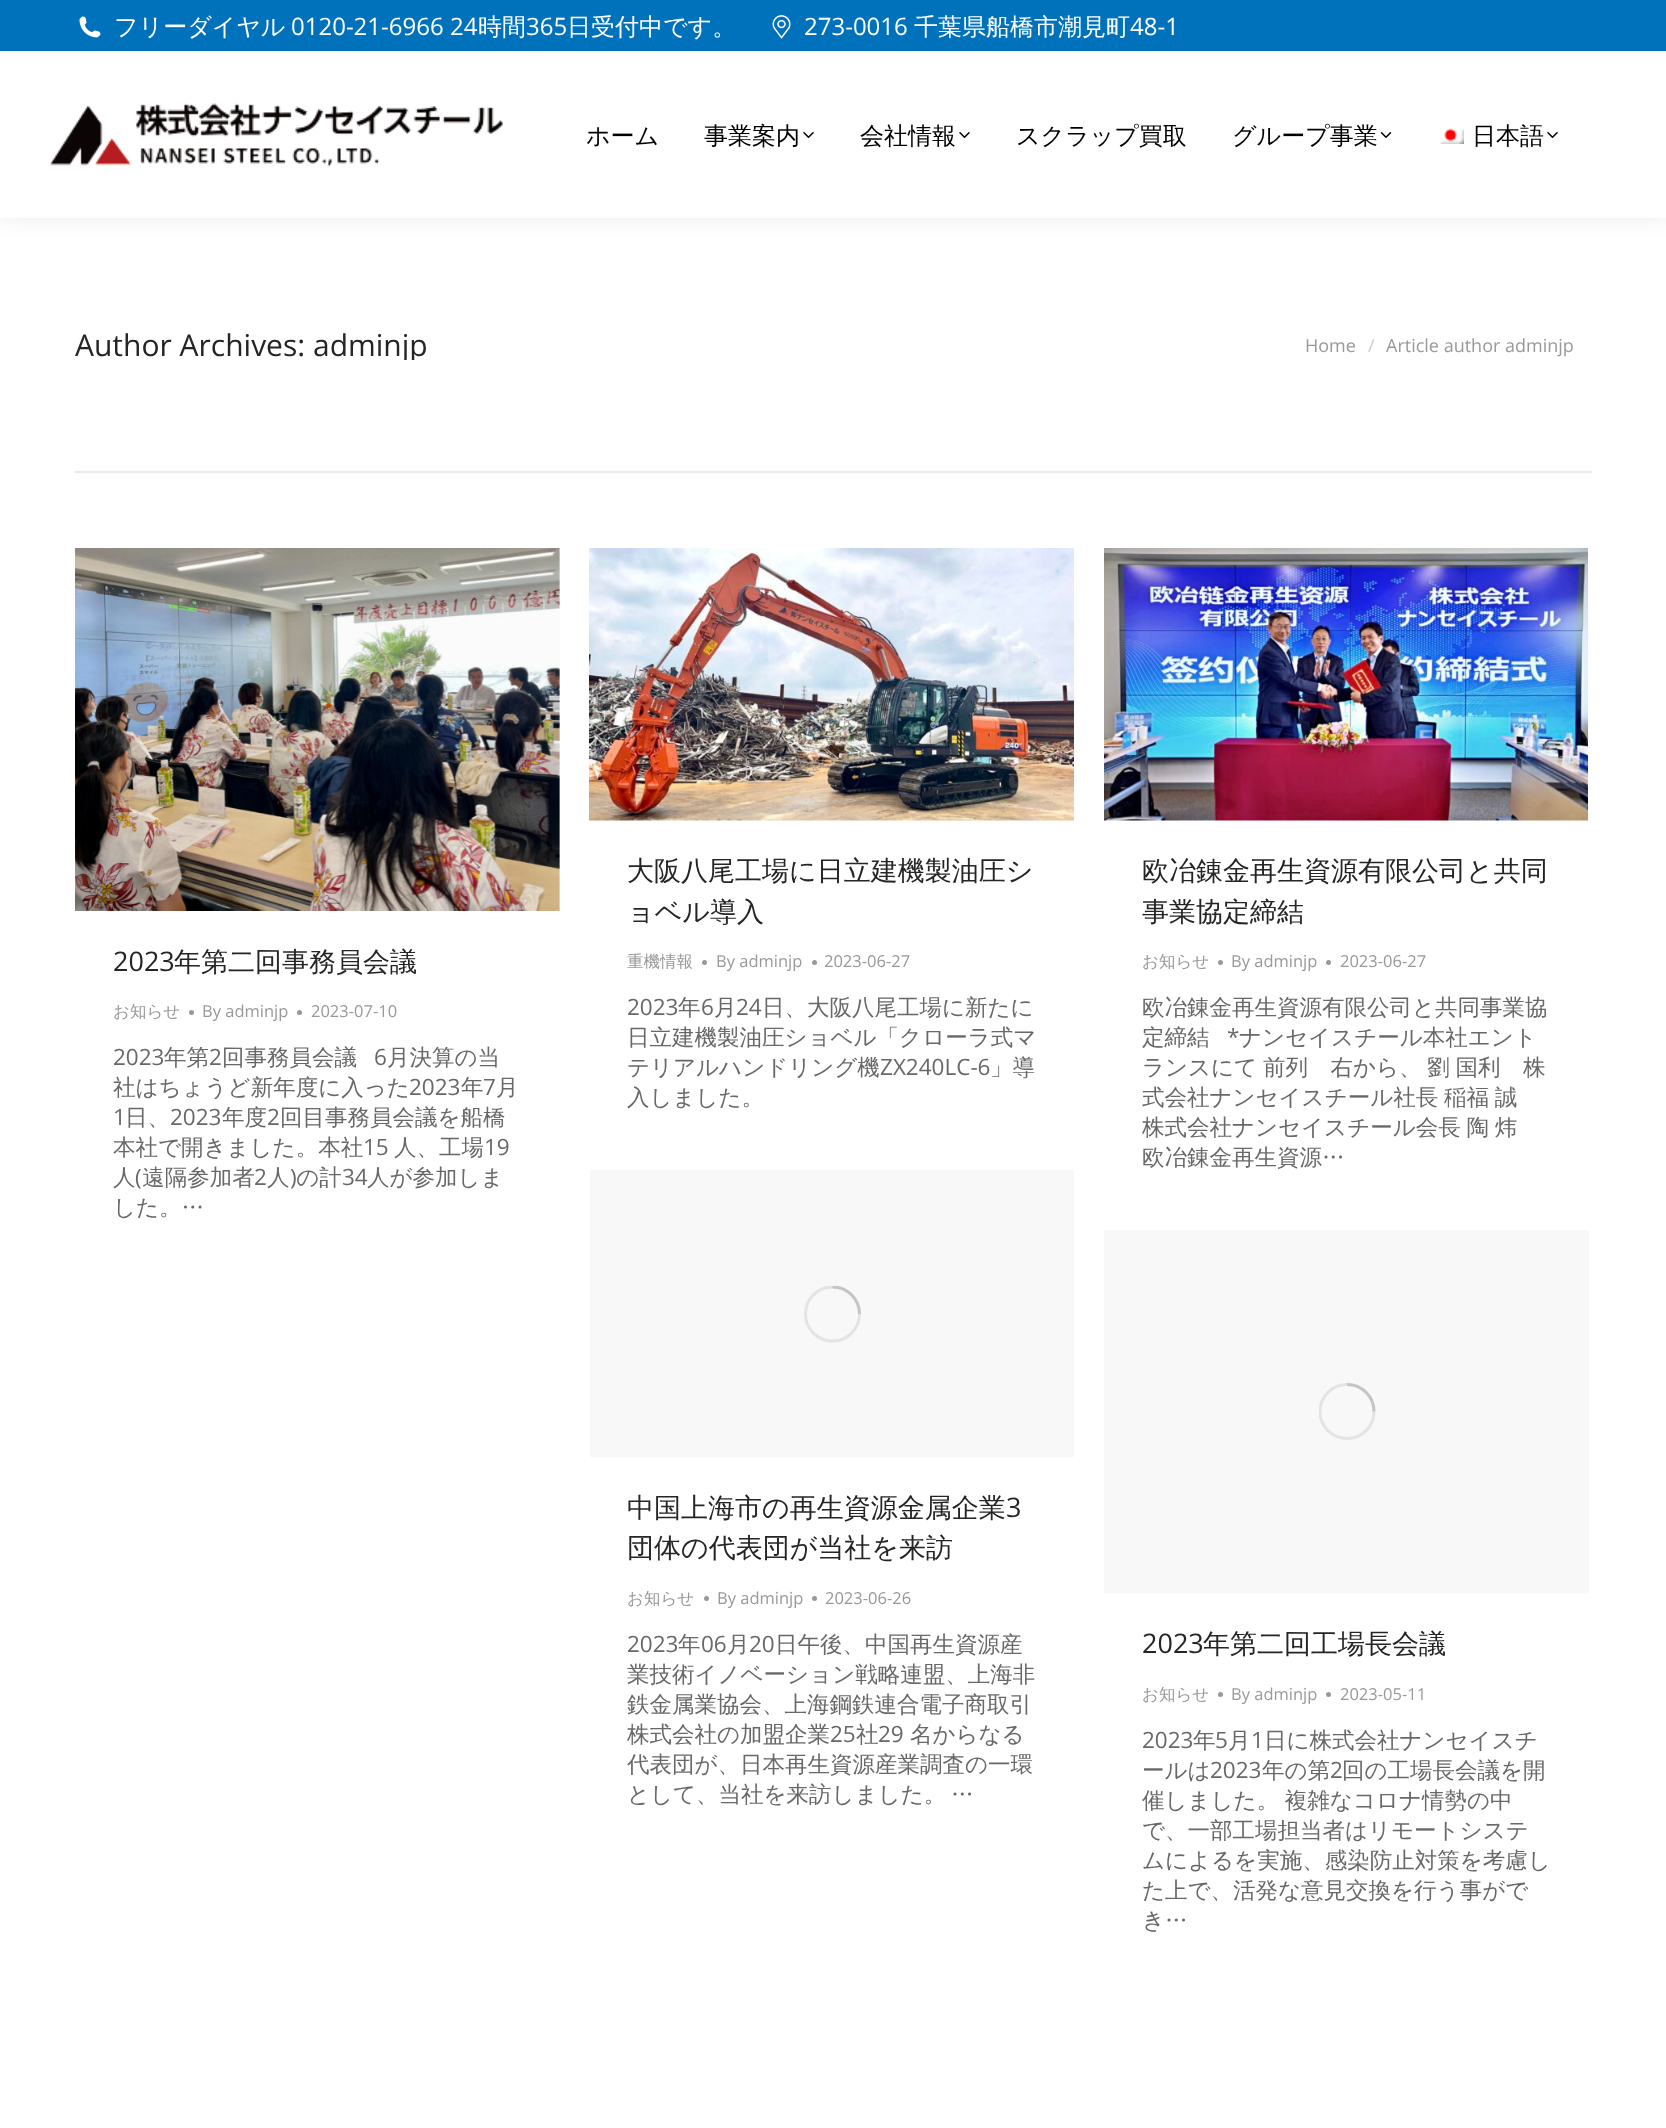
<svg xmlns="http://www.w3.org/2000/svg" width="1666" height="2128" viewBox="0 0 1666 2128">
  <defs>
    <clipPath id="clip1"><rect x="75" y="330" width="353" height="30"/></clipPath>
    <clipPath id="clip2"><rect x="804" y="1286" width="57" height="57"/></clipPath>
    <clipPath id="clip3"><rect x="1319" y="1383" width="57" height="57"/></clipPath>
  </defs>
  <rect width="100%" height="100%" fill="rgb(255,255,255)"/>
  <rect x="-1" y="-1" width="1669" height="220" fill="rgba(0,0,0,0.07)" filter="blur(11px)"/>
  <rect x="0" y="51" width="1666" height="167" fill="rgb(255,255,255)"/>
  <rect x="0" y="0" width="1666" height="51" fill="rgb(0,113,187)"/>
  <image x="79" y="16" width="22" height="22" href="pic1.png"/>
  <text x="114" y="35" font-family="WenQuanYi Zen Hei" font-size="24" font-weight="500" fill="rgb(255,255,255)">フリーダイヤル</text>
  <text x="291" y="35" font-family="Open Sans" font-size="24" fill="rgb(255,255,255)">0120-21-6966 24</text>
  <text x="478" y="35" font-family="WenQuanYi Zen Hei" font-size="24" font-weight="500" fill="rgb(255,255,255)">時間</text>
  <text x="526" y="35" font-family="Open Sans" font-size="24" fill="rgb(255,255,255)">365</text>
  <text x="567" y="35" font-family="WenQuanYi Zen Hei" font-size="24" font-weight="500" fill="rgb(255,255,255)">日受付中です。</text>
  <image x="772" y="15" width="19" height="24" href="pic2.png"/>
  <text x="804" y="35" font-family="Open Sans" font-size="24" fill="rgb(255,255,255)">273-0016</text>
  <text x="914" y="35" font-family="WenQuanYi Zen Hei" font-size="24" font-weight="500" fill="rgb(255,255,255)">千葉県船橋市潮見町</text>
  <text x="1130" y="35" font-family="Open Sans" font-size="24" fill="rgb(255,255,255)">48-1</text>
  <image x="50" y="103" width="454" height="64" href="pic3.png"/>
  <g font-family="WenQuanYi Zen Hei" font-size="24" font-weight="500" fill="rgb(0,0,0)">
    <text x="586" y="144">ホーム</text>
    <text x="704" y="144">事業案内</text>
  </g>
  <image x="803" y="132" width="11" height="6" href="pic4.png"/>
  <text x="860" y="144" font-family="WenQuanYi Zen Hei" font-size="24" font-weight="500" fill="rgb(0,0,0)">会社情報</text>
  <image x="959" y="132" width="11" height="6" href="pic4.png"/>
  <g font-family="WenQuanYi Zen Hei" font-size="24" font-weight="500" fill="rgb(0,0,0)">
    <text x="1016" y="144">スクラップ買取</text>
    <text x="1232" y="144">グループ事業</text>
  </g>
  <image x="1380" y="132" width="12" height="6" href="pic5.png"/>
  <image x="1440" y="128" width="24" height="16" href="pic6.png"/>
  <text x="1472" y="144" font-family="WenQuanYi Zen Hei" font-size="24" font-weight="500" fill="rgb(0,0,0)">日本語</text>
  <image x="1547" y="132" width="11" height="6" href="pic4.png"/>
  <text x="75" y="356" font-family="Open Sans" font-size="30" fill="rgb(37,37,37)">Author Archives:</text>
  <g clip-path="url(#clip1)">
    <text x="313" y="356" font-family="Open Sans" font-size="30" fill="rgb(37,37,37)">adminjp</text>
  </g>
  <text x="1305" y="352" font-family="Open Sans" font-size="18" fill="rgb(153,153,153)">Home</text>
  <text x="1368" y="352" font-family="Open Sans" font-size="18" fill="rgb(204,204,204)">/</text>
  <text x="1386" y="352" font-family="Open Sans" font-size="18" fill="rgb(153,153,153)">Article author adminjp</text>
  <rect x="75" y="471" width="1517" height="2" fill="rgb(233,233,233)"/>
  <image x="75" y="548" width="485" height="363" href="pic7.png"/>
  <text x="113" y="971" font-family="Open Sans" font-size="27" fill="rgb(37,37,37)">2023</text>
  <text x="174" y="971" font-family="WenQuanYi Zen Hei" font-size="27" font-weight="500" fill="rgb(37,37,37)">年第二回事務員会議</text>
  <text x="113" y="1017" font-family="WenQuanYi Zen Hei" font-size="16.5" font-weight="500" fill="rgb(153,153,153)">お知らせ</text>
  <circle cx="191.5" cy="1012.5" r="2.5" fill="rgb(153,153,153)"/>
  <text x="202" y="1017" font-family="Open Sans" font-size="16.5" fill="rgb(153,153,153)">By adminjp</text>
  <circle cx="299.5" cy="1012.5" r="2.5" fill="rgb(153,153,153)"/>
  <text x="311" y="1017" font-family="Open Sans" font-size="16.5" fill="rgb(153,153,153)">2023-07-10</text>
  <text x="113" y="1065" font-family="Open Sans" font-size="22.5" fill="rgb(104,104,104)">2023</text>
  <text x="164" y="1065" font-family="WenQuanYi Zen Hei" font-size="22.5" font-weight="500" fill="rgb(104,104,104)">年第</text>
  <text x="209" y="1065" font-family="Open Sans" font-size="22.5" fill="rgb(104,104,104)">2</text>
  <text x="222" y="1065" font-family="WenQuanYi Zen Hei" font-size="22.5" font-weight="500" fill="rgb(104,104,104)">回事務員会議</text>
  <text x="374" y="1065" font-family="Open Sans" font-size="22.5" fill="rgb(104,104,104)">6</text>
  <g font-family="WenQuanYi Zen Hei" font-size="22.5" font-weight="500" fill="rgb(104,104,104)">
    <text x="387" y="1065">月決算の当</text>
    <text x="113" y="1095">社はちょうど新年度に入った</text>
  </g>
  <text x="409" y="1095" font-family="Open Sans" font-size="22.5" fill="rgb(104,104,104)">2023</text>
  <text x="461" y="1095" font-family="WenQuanYi Zen Hei" font-size="22.5" font-weight="500" fill="rgb(104,104,104)">年</text>
  <text x="483" y="1095" font-family="Open Sans" font-size="22.5" fill="rgb(104,104,104)">7</text>
  <text x="496" y="1095" font-family="WenQuanYi Zen Hei" font-size="22.5" font-weight="500" fill="rgb(104,104,104)">月</text>
  <text x="113" y="1125" font-family="Open Sans" font-size="22.5" fill="rgb(104,104,104)">1</text>
  <text x="125" y="1125" font-family="WenQuanYi Zen Hei" font-size="22.5" font-weight="500" fill="rgb(104,104,104)">日、</text>
  <text x="170" y="1125" font-family="Open Sans" font-size="22.5" fill="rgb(104,104,104)">2023</text>
  <text x="222" y="1125" font-family="WenQuanYi Zen Hei" font-size="22.5" font-weight="500" fill="rgb(104,104,104)">年度</text>
  <text x="267" y="1125" font-family="Open Sans" font-size="22.5" fill="rgb(104,104,104)">2</text>
  <g font-family="WenQuanYi Zen Hei" font-size="22.5" font-weight="500" fill="rgb(104,104,104)">
    <text x="280" y="1125">回目事務員会議を船橋</text>
    <text x="113" y="1155">本社で開きました。本社</text>
  </g>
  <text x="363" y="1155" font-family="Open Sans" font-size="22.5" fill="rgb(104,104,104)">15</text>
  <text x="394" y="1155" font-family="WenQuanYi Zen Hei" font-size="22.5" font-weight="500" fill="rgb(104,104,104)">人、工場</text>
  <text x="484" y="1155" font-family="Open Sans" font-size="22.5" fill="rgb(104,104,104)">19</text>
  <g font-family="WenQuanYi Zen Hei" font-size="22.5" font-weight="500" fill="rgb(104,104,104)">
    <text x="113" y="1185">人 遠隔参加者</text>
    <text x="267" y="1185">人 の計</text>
    <text x="367" y="1185">人が参加しま</text>
  </g>
  <g font-family="Open Sans" font-size="22.5" fill="rgb(104,104,104)">
    <text x="135" y="1185">(</text>
    <text x="254" y="1185">2</text>
    <text x="290" y="1185">)</text>
    <text x="342" y="1185">34</text>
  </g>
  <text x="113" y="1215" font-family="WenQuanYi Zen Hei" font-size="22.5" font-weight="500" fill="rgb(104,104,104)">した。…</text>
  <image x="589" y="548" width="485" height="273" href="pic8.png"/>
  <g font-family="WenQuanYi Zen Hei" font-size="27" font-weight="500" fill="rgb(37,37,37)">
    <text>
      <tspan x="627" y="880">大阪八尾工場に日立建機製油圧シ</tspan>
      <tspan x="627" y="921">ョベル導入</tspan>
    </text>
  </g>
  <text x="627" y="967" font-family="WenQuanYi Zen Hei" font-size="16.5" font-weight="500" fill="rgb(153,153,153)">重機情報</text>
  <circle cx="704.5" cy="962.5" r="2.5" fill="rgb(153,153,153)"/>
  <text x="716" y="967" font-family="Open Sans" font-size="16.5" fill="rgb(153,153,153)">By adminjp</text>
  <circle cx="814.5" cy="962.5" r="2.5" fill="rgb(153,153,153)"/>
  <text x="824" y="967" font-family="Open Sans" font-size="16.5" fill="rgb(153,153,153)">2023-06-27</text>
  <text x="627" y="1015" font-family="Open Sans" font-size="22.5" fill="rgb(104,104,104)">2023</text>
  <text x="678" y="1015" font-family="WenQuanYi Zen Hei" font-size="22.5" font-weight="500" fill="rgb(104,104,104)">年</text>
  <text x="701" y="1015" font-family="Open Sans" font-size="22.5" fill="rgb(104,104,104)">6</text>
  <text x="714" y="1015" font-family="WenQuanYi Zen Hei" font-size="22.5" font-weight="500" fill="rgb(104,104,104)">月</text>
  <text x="736" y="1015" font-family="Open Sans" font-size="22.5" fill="rgb(104,104,104)">24</text>
  <g font-family="WenQuanYi Zen Hei" font-size="22.5" font-weight="500" fill="rgb(104,104,104)">
    <text x="762" y="1015">日、大阪八尾工場に新たに</text>
    <text>
      <tspan x="627" y="1045">日立建機製油圧ショベル「クローラ式マ</tspan>
      <tspan x="627" y="1075">テリアルハンドリング機</tspan>
    </text>
  </g>
  <text x="880" y="1075" font-family="Open Sans" font-size="22.5" fill="rgb(104,104,104)">ZX240LC-6</text>
  <g font-family="WenQuanYi Zen Hei" font-size="22.5" font-weight="500" fill="rgb(104,104,104)">
    <text x="990" y="1075">」導</text>
    <text x="627" y="1105">入しました。</text>
  </g>
  <image x="1104" y="548" width="484" height="273" href="pic9.png"/>
  <g font-family="WenQuanYi Zen Hei" font-size="27" font-weight="500" fill="rgb(37,37,37)">
    <text>
      <tspan x="1142" y="880">欧冶錬金再生資源有限公司と共同</tspan>
      <tspan x="1142" y="921">事業協定締結</tspan>
    </text>
  </g>
  <text x="1142" y="967" font-family="WenQuanYi Zen Hei" font-size="16.5" font-weight="500" fill="rgb(153,153,153)">お知らせ</text>
  <circle cx="1220.5" cy="962.5" r="2.5" fill="rgb(153,153,153)"/>
  <text x="1231" y="967" font-family="Open Sans" font-size="16.5" fill="rgb(153,153,153)">By adminjp</text>
  <circle cx="1328.5" cy="962.5" r="2.5" fill="rgb(153,153,153)"/>
  <text x="1340" y="967" font-family="Open Sans" font-size="16.5" fill="rgb(153,153,153)">2023-06-27</text>
  <g font-family="WenQuanYi Zen Hei" font-size="22.5" font-weight="500" fill="rgb(104,104,104)">
    <text>
      <tspan x="1142" y="1015">欧冶錬金再生資源有限公司と共同事業協</tspan>
      <tspan x="1142" y="1045">定締結</tspan>
    </text>
  </g>
  <text x="1227" y="1045" font-family="Open Sans" font-size="22.5" fill="rgb(104,104,104)">*</text>
  <g font-family="WenQuanYi Zen Hei" font-size="22.5" font-weight="500" fill="rgb(104,104,104)">
    <text x="1239" y="1045">ナンセイスチール本社エント</text>
    <text>
      <tspan x="1142" y="1075" word-spacing="-1">ランスにて 前列　右から、 劉 国利　株</tspan>
      <tspan x="1142" y="1105" word-spacing="-1">式会社ナンセイスチール社長 稲福 誠</tspan>
      <tspan x="1142" y="1135" word-spacing="-1">株式会社ナンセイスチール会長 陶 炜</tspan>
      <tspan x="1142" y="1165">欧冶錬金再生資源…</tspan>
    </text>
  </g>
  <rect x="590" y="1170" width="484" height="287" fill="rgb(248,248,248)"/>
  <g clip-path="url(#clip2)">
    <circle cx="832.5" cy="1314" r="27" fill="none" stroke="rgb(228,228,228)" stroke-width="3"/>
    <path d="M859.5 1314C859.5 1299 847.5 1287 832.5 1287" fill="none" stroke="rgba(104,104,104,0.25)" stroke-width="3"/>
  </g>
  <text x="627" y="1517" font-family="WenQuanYi Zen Hei" font-size="27" font-weight="500" fill="rgb(37,37,37)">中国上海市の再生資源金属企業</text>
  <text x="1006" y="1517" font-family="Open Sans" font-size="27" fill="rgb(37,37,37)">3</text>
  <text x="627" y="1557" font-family="WenQuanYi Zen Hei" font-size="27" font-weight="500" fill="rgb(37,37,37)">団体の代表団が当社を来訪</text>
  <text x="627" y="1604" font-family="WenQuanYi Zen Hei" font-size="16.5" font-weight="500" fill="rgb(153,153,153)">お知らせ</text>
  <circle cx="706.5" cy="1598.5" r="2.5" fill="rgb(153,153,153)"/>
  <text x="717" y="1604" font-family="Open Sans" font-size="16.5" fill="rgb(153,153,153)">By adminjp</text>
  <circle cx="814.5" cy="1598.5" r="2.5" fill="rgb(153,153,153)"/>
  <text x="825" y="1604" font-family="Open Sans" font-size="16.5" fill="rgb(153,153,153)">2023-06-26</text>
  <text x="627" y="1652" font-family="Open Sans" font-size="22.5" fill="rgb(104,104,104)">2023</text>
  <text x="678" y="1652" font-family="WenQuanYi Zen Hei" font-size="22.5" font-weight="500" fill="rgb(104,104,104)">年</text>
  <text x="701" y="1652" font-family="Open Sans" font-size="22.5" fill="rgb(104,104,104)">06</text>
  <text x="727" y="1652" font-family="WenQuanYi Zen Hei" font-size="22.5" font-weight="500" fill="rgb(104,104,104)">月</text>
  <text x="749" y="1652" font-family="Open Sans" font-size="22.5" fill="rgb(104,104,104)">20</text>
  <g font-family="WenQuanYi Zen Hei" font-size="22.5" font-weight="500" fill="rgb(104,104,104)">
    <text x="775" y="1652">日午後、中国再生資源産</text>
    <text>
      <tspan x="627" y="1682">業技術イノベーション戦略連盟、上海非</tspan>
      <tspan x="627" y="1712">鉄金属業協会、上海鋼鉄連合電子商取引</tspan>
      <tspan x="627" y="1742">株式会社の加盟企業</tspan>
    </text>
  </g>
  <text x="830" y="1742" font-family="Open Sans" font-size="22.5" fill="rgb(104,104,104)">25</text>
  <text x="856" y="1742" font-family="WenQuanYi Zen Hei" font-size="22.5" font-weight="500" fill="rgb(104,104,104)">社</text>
  <text x="878" y="1742" font-family="Open Sans" font-size="22.5" fill="rgb(104,104,104)">29</text>
  <g font-family="WenQuanYi Zen Hei" font-size="22.5" font-weight="500" fill="rgb(104,104,104)">
    <text x="910" y="1742">名からなる</text>
    <text>
      <tspan x="627" y="1772">代表団が、日本再生資源産業調査の一環</tspan>
      <tspan x="627" y="1802" word-spacing="-2">として、当社を来訪しました。 …</tspan>
    </text>
  </g>
  <rect x="1104" y="1230" width="485" height="363" fill="rgb(248,248,248)"/>
  <g clip-path="url(#clip3)">
    <circle cx="1347" cy="1411.5" r="27" fill="none" stroke="rgb(228,228,228)" stroke-width="3"/>
  </g>
  <path d="M1374 1411.5C1374 1396.5 1362 1384.5 1347 1384.5" fill="none" stroke="rgba(104,104,104,0.25)" stroke-width="3"/>
  <text x="1142" y="1653" font-family="Open Sans" font-size="27" fill="rgb(37,37,37)">2023</text>
  <text x="1203" y="1653" font-family="WenQuanYi Zen Hei" font-size="27" font-weight="500" fill="rgb(37,37,37)">年第二回工場長会議</text>
  <text x="1142" y="1700" font-family="WenQuanYi Zen Hei" font-size="16.5" font-weight="500" fill="rgb(153,153,153)">お知らせ</text>
  <circle cx="1220.5" cy="1694.5" r="2.5" fill="rgb(153,153,153)"/>
  <text x="1231" y="1700" font-family="Open Sans" font-size="16.5" fill="rgb(153,153,153)">By adminjp</text>
  <circle cx="1328.5" cy="1694.5" r="2.5" fill="rgb(153,153,153)"/>
  <text x="1340" y="1700" font-family="Open Sans" font-size="16.5" fill="rgb(153,153,153)">2023-05-11</text>
  <text x="1142" y="1748" font-family="Open Sans" font-size="22.5" fill="rgb(104,104,104)">2023</text>
  <text x="1193" y="1748" font-family="WenQuanYi Zen Hei" font-size="22.5" font-weight="500" fill="rgb(104,104,104)">年</text>
  <text x="1215" y="1748" font-family="Open Sans" font-size="22.5" fill="rgb(104,104,104)">5</text>
  <text x="1228" y="1748" font-family="WenQuanYi Zen Hei" font-size="22.5" font-weight="500" fill="rgb(104,104,104)">月</text>
  <text x="1251" y="1748" font-family="Open Sans" font-size="22.5" fill="rgb(104,104,104)">1</text>
  <g font-family="WenQuanYi Zen Hei" font-size="22.5" font-weight="500" fill="rgb(104,104,104)">
    <text x="1264" y="1748">日に株式会社ナンセイスチ</text>
    <text x="1142" y="1778">ールは</text>
  </g>
  <text x="1210" y="1778" font-family="Open Sans" font-size="22.5" fill="rgb(104,104,104)">2023</text>
  <text x="1262" y="1778" font-family="WenQuanYi Zen Hei" font-size="22.5" font-weight="500" fill="rgb(104,104,104)">年の第</text>
  <text x="1330" y="1778" font-family="Open Sans" font-size="22.5" fill="rgb(104,104,104)">2</text>
  <g font-family="WenQuanYi Zen Hei" font-size="22.5" font-weight="500" fill="rgb(104,104,104)">
    <text x="1342" y="1778">回の工場長会議を開</text>
    <text>
      <tspan x="1142" y="1808" word-spacing="-1">催しました。 複雑なコロナ情勢の中</tspan>
      <tspan x="1142" y="1838">で、一部工場担当者はリモートシステ</tspan>
      <tspan x="1142" y="1868">ムによるを実施、感染防止対策を考慮し</tspan>
      <tspan x="1142" y="1898">た上で、活発な意見交換を行う事がで</tspan>
      <tspan x="1142" y="1928">き…</tspan>
    </text>
  </g>
</svg>
